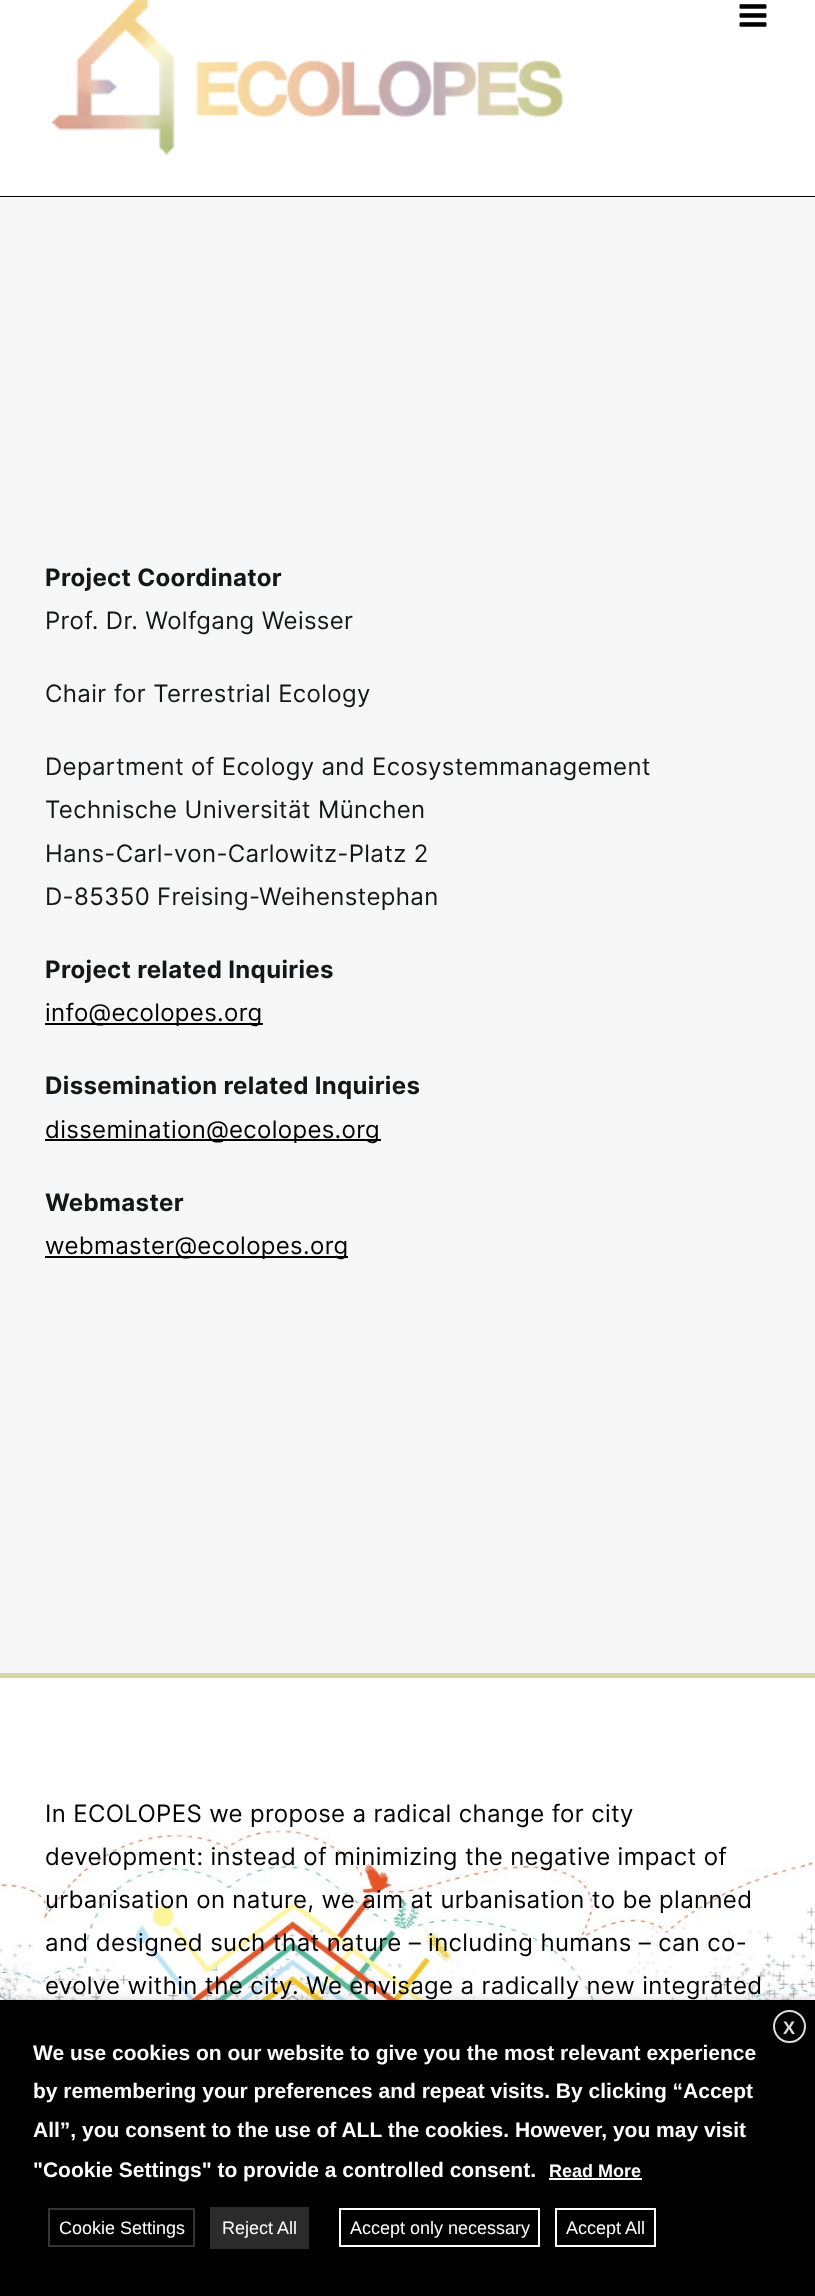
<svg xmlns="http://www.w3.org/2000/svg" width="815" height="2296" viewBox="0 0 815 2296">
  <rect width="100%" height="100%" fill="rgb(247,247,247)"/>
  <rect x="0" y="0" width="815" height="196" fill="rgb(255,255,255)"/>
  <image x="51" y="0" width="512" height="156" href="pic1.png"/>
  <image x="739" y="4" width="28" height="23" href="pic2.png"/>
  <rect x="0" y="196" width="815" height="1" fill="rgb(0,0,0)"/>
  <text x="45" y="586" font-family="Inter" font-size="24" font-weight="bold" letter-spacing="0.35" fill="rgb(20,22,23)">Project Coordinator</text>
  <g font-family="Inter" font-size="24" letter-spacing="0.35" fill="rgb(20,22,23)">
    <text x="45" y="629">Prof. Dr. Wolfgang Weisser</text>
    <text x="45" y="702">Chair for Terrestrial Ecology</text>
    <text>
      <tspan x="45" y="775">Department of Ecology and Ecosystemmanagement</tspan>
      <tspan x="45" y="818">Technische Universität München</tspan>
      <tspan x="45" y="862">Hans-Carl-von-Carlowitz-Platz 2</tspan>
      <tspan x="45" y="905">D-85350 Freising-Weihenstephan</tspan>
    </text>
  </g>
  <text x="45" y="978" font-family="Inter" font-size="24" font-weight="bold" letter-spacing="0.35" fill="rgb(20,22,23)">Project related Inquiries</text>
  <rect x="45" y="1023" width="218" height="2" fill="rgb(0,0,0)"/>
  <text x="45" y="1021" font-family="Inter" font-size="24" letter-spacing="0.35" fill="rgb(0,0,0)">info@ecolopes.org</text>
  <text x="45" y="1094" font-family="Inter" font-size="24" font-weight="bold" letter-spacing="0.35" fill="rgb(20,22,23)">Dissemination related Inquiries</text>
  <rect x="45" y="1139" width="336" height="2" fill="rgb(0,0,0)"/>
  <text x="45" y="1138" font-family="Inter" font-size="24" letter-spacing="0.35" fill="rgb(0,0,0)">dissemination@ecolopes.org</text>
  <text x="45" y="1211" font-family="Inter" font-size="24" font-weight="bold" letter-spacing="0.35" fill="rgb(20,22,23)">Webmaster</text>
  <rect x="45" y="1256" width="303" height="2" fill="rgb(0,0,0)"/>
  <text x="45" y="1254" font-family="Inter" font-size="24" letter-spacing="0.35" fill="rgb(0,0,0)">webmaster@ecolopes.org</text>
  <rect x="0" y="1673" width="815" height="5" fill="rgb(216,210,170)"/>
  <rect x="0" y="1678" width="815" height="150" fill="rgb(255,255,255)"/>
  <image x="0" y="1828" width="815" height="172" href="pic3.png"/>
  <g font-family="Inter" font-size="24" letter-spacing="0.35" fill="rgb(0,0,0)">
    <text>
      <tspan x="45" y="1822">In ECOLOPES we propose a radical change for city</tspan>
      <tspan x="45" y="1865">development: instead of minimizing the negative impact of</tspan>
      <tspan x="45" y="1908">urbanisation on nature, we aim at urbanisation to be planned</tspan>
      <tspan x="45" y="1951">and designed such that nature – including humans – can co-</tspan>
      <tspan x="45" y="1994">evolve within the city. We envisage a radically new integrated</tspan>
    </text>
  </g>
  <rect x="0" y="2007" width="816" height="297" fill="rgba(0,0,0,0.5)" filter="blur(7.5px)"/>
  <rect x="0" y="2000" width="815" height="296" fill="rgb(0,0,0)"/>
  <circle cx="789.5" cy="2026.5" r="15.5" fill="none" stroke="rgb(221,221,221)" stroke-width="2"/>
  <text x="783" y="2034" font-family="Liberation Sans" font-size="18" font-weight="bold" fill="rgb(221,221,221)">X</text>
  <g font-family="Liberation Sans" font-size="21" font-weight="bold" fill="rgb(255,255,255)">
    <text>
      <tspan x="33" y="2060">We use cookies on our website to give you the most relevant experience</tspan>
      <tspan x="33" y="2098">by remembering your preferences and repeat visits. By clicking “Accept</tspan>
      <tspan x="33" y="2137">All”, you consent to the use of ALL the cookies. However, you may visit</tspan>
      <tspan x="33" y="2177">"Cookie Settings" to provide a controlled consent.</tspan>
    </text>
  </g>
  <text x="549" y="2177" font-family="Liberation Sans" font-size="18" font-weight="bold" fill="rgb(255,255,255)">Read More</text>
  <rect x="549" y="2178" width="93" height="2" fill="rgb(255,255,255)"/>
  <rect x="49" y="2209" width="145" height="37" fill="none" stroke="rgb(52,52,52)" stroke-width="2"/>
  <text x="59" y="2234" font-family="Liberation Sans" font-size="18" fill="rgb(255,255,255)">Cookie Settings</text>
  <rect x="210" y="2207" width="99" height="42" fill="rgb(44,43,43)"/>
  <text x="222" y="2234" font-family="Liberation Sans" font-size="18" fill="rgb(255,255,255)">Reject All</text>
  <rect x="340" y="2209" width="199" height="37" fill="none" stroke="rgb(255,255,255)" stroke-width="2"/>
  <text x="350" y="2234" font-family="Liberation Sans" font-size="18" fill="rgb(255,255,255)">Accept only necessary</text>
  <rect x="556" y="2209" width="99" height="37" fill="none" stroke="rgb(255,255,255)" stroke-width="2"/>
  <text x="566" y="2234" font-family="Liberation Sans" font-size="18" fill="rgb(255,255,255)">Accept All</text>
</svg>
